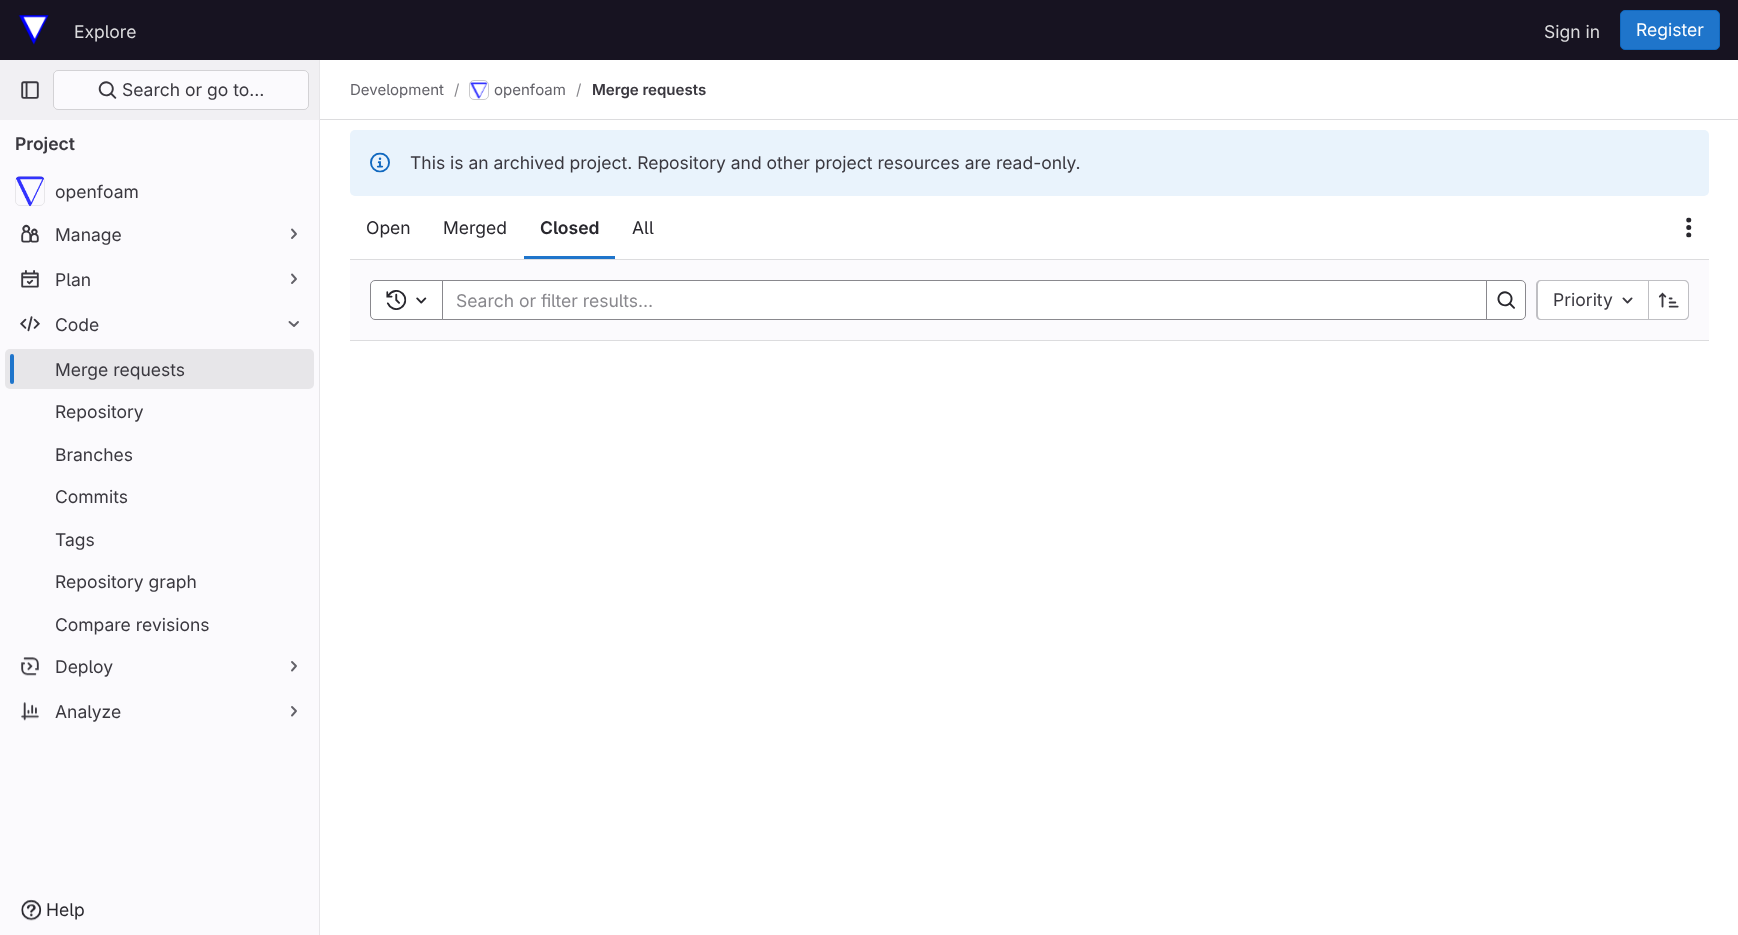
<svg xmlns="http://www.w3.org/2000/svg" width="1738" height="935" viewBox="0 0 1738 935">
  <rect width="100%" height="100%" fill="rgb(255,255,255)"/>
  <rect x="0" y="0" width="1738" height="60" fill="rgb(23,19,33)"/>
  <image x="18" y="15" width="31" height="30" href="pic1.png"/>
  <g font-family="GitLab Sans" font-size="17.5" fill="rgb(220,220,222)">
    <text x="74" y="38">Explore</text>
    <text x="1544" y="38">Sign in</text>
  </g>
  <rect x="1620.5" y="10.5" width="99" height="39" rx="4.5" fill="rgb(31,117,203)" stroke="rgb(16,104,191)"/>
  <text x="1636" y="36" font-family="GitLab Sans" font-size="17.5" fill="rgb(255,255,255)">Register</text>
  <rect x="0" y="120" width="319" height="815" fill="rgb(251,250,253)"/>
  <rect x="319" y="60" width="1" height="875" fill="rgb(231,230,233)"/>
  <rect x="0" y="60" width="319" height="60" fill="rgb(241,240,243)"/>
  <image x="21" y="81" width="18" height="18" href="pic2.png"/>
  <rect x="53" y="70" width="256" height="40" rx="5" fill="rgb(251,250,253)"/>
  <rect x="53.5" y="70.5" width="255" height="39" rx="4.5" fill="none" stroke="rgba(5,5,6,0.16)"/>
  <image x="98" y="81" width="19" height="18" href="pic3.png"/>
  <text x="122" y="96" font-family="GitLab Sans" font-size="17.5" fill="rgb(58,56,63)">Search or go to…</text>
  <text x="15" y="150" font-family="GitLab Sans" font-size="17.5" font-weight="600" fill="rgb(58,56,63)">Project</text>
  <image x="16" y="176" width="28" height="31" href="pic4.png"/>
  <rect x="15.5" y="176.5" width="29" height="29" rx="4.5" fill="none" stroke="rgba(5,5,6,0.08)"/>
  <text x="55" y="198" font-family="GitLab Sans" font-size="17.5" fill="rgb(58,56,63)">openfoam</text>
  <image x="21" y="224" width="18" height="19" href="pic5.png"/>
  <text x="55" y="241" font-family="GitLab Sans" font-size="17.5" fill="rgb(58,56,63)">Manage</text>
  <path d="M292 229.5L296 234L292 238" fill="none" stroke="rgb(98,97,104)" stroke-width="1.9" stroke-linecap="round" stroke-linejoin="round"/>
  <image x="21" y="270" width="18" height="18" href="pic6.png"/>
  <text x="55" y="286" font-family="GitLab Sans" font-size="17.5" fill="rgb(58,56,63)">Plan</text>
  <path d="M292 274.5L296 279L292 283" fill="none" stroke="rgb(98,97,104)" stroke-width="1.9" stroke-linecap="round" stroke-linejoin="round"/>
  <image x="20" y="316" width="20" height="16" href="pic7.png"/>
  <text x="55" y="331" font-family="GitLab Sans" font-size="17.5" fill="rgb(58,56,63)">Code</text>
  <path d="M298 322L294 326L289.5 322" fill="none" stroke="rgb(98,97,104)" stroke-width="1.9" stroke-linecap="round" stroke-linejoin="round"/>
  <rect x="5" y="349" width="309" height="40" rx="5" fill="rgb(231,230,233)"/>
  <rect x="10" y="354" width="4" height="30" rx="2" fill="rgb(31,117,203)"/>
  <g font-family="GitLab Sans" font-size="17.5" fill="rgb(58,56,63)">
    <text x="55" y="376">Merge requests</text>
    <text x="55" y="418">Repository</text>
    <text x="55" y="461">Branches</text>
    <text x="55" y="503">Commits</text>
    <text x="55" y="546">Tags</text>
    <text x="55" y="588">Repository graph</text>
    <text x="55" y="631">Compare revisions</text>
  </g>
  <image x="21" y="657" width="18" height="19" href="pic8.png"/>
  <text x="55" y="673" font-family="GitLab Sans" font-size="17.5" fill="rgb(58,56,63)">Deploy</text>
  <path d="M292 662L296 666L292 670.5" fill="none" stroke="rgb(98,97,104)" stroke-width="1.9" stroke-linecap="round" stroke-linejoin="round"/>
  <image x="21" y="702" width="18" height="19" href="pic9.png"/>
  <text x="55" y="718" font-family="GitLab Sans" font-size="17.5" fill="rgb(58,56,63)">Analyze</text>
  <path d="M292 707L296 711L292 715.5" fill="none" stroke="rgb(98,97,104)" stroke-width="1.9" stroke-linecap="round" stroke-linejoin="round"/>
  <image x="21" y="899" width="21" height="22" href="pic10.png"/>
  <text x="46" y="916" font-family="GitLab Sans" font-size="17.5" fill="rgb(40,39,45)">Help</text>
  <rect x="320" y="119" width="1418" height="1" fill="rgb(220,220,222)"/>
  <text x="350" y="95" font-family="GitLab Sans" font-size="15" fill="rgb(98,97,104)">Development</text>
  <text x="454" y="95" font-family="GitLab Sans" font-size="15" fill="rgb(137,136,141)">/</text>
  <rect x="469.5" y="80.5" width="19" height="19" rx="4.5" fill="none" stroke="rgb(220,220,222)"/>
  <image x="469" y="82" width="19" height="17" href="pic11.png"/>
  <rect x="469.5" y="80.5" width="19" height="19" rx="4.5" fill="none" stroke="rgba(5,5,6,0.08)"/>
  <text x="494" y="95" font-family="GitLab Sans" font-size="15" fill="rgb(98,97,104)">openfoam</text>
  <text x="576" y="95" font-family="GitLab Sans" font-size="15" fill="rgb(137,136,141)">/</text>
  <text x="592" y="95" font-family="GitLab Sans" font-size="15" font-weight="600" fill="rgb(58,56,63)">Merge requests</text>
  <rect x="350" y="130" width="1359" height="66" rx="5" fill="rgb(233,243,252)"/>
  <image x="370" y="152" width="20" height="21" href="pic12.png"/>
  <text x="410" y="169" font-family="GitLab Sans" font-size="17.5" fill="rgb(58,56,63)">This is an archived project. Repository and other project resources are read-only.</text>
  <rect x="350" y="259" width="1359" height="1" fill="rgb(220,220,222)"/>
  <g font-family="GitLab Sans" font-size="17.5" fill="rgb(40,39,45)">
    <text x="366" y="234">Open</text>
    <text x="443" y="234">Merged</text>
  </g>
  <text x="540" y="234" font-family="GitLab Sans" font-size="17.5" font-weight="600" fill="rgb(40,39,45)">Closed</text>
  <rect x="524" y="256" width="91" height="3" fill="rgb(31,117,203)"/>
  <text x="632" y="234" font-family="GitLab Sans" font-size="17.5" fill="rgb(40,39,45)">All</text>
  <image x="1686" y="217" width="6" height="21" href="pic13.png"/>
  <rect x="350" y="260" width="1359" height="80" fill="rgb(251,250,253)"/>
  <rect x="350" y="340" width="1359" height="1" fill="rgb(220,220,222)"/>
  <rect x="443" y="281" width="1043" height="38" fill="rgb(255,255,255)"/>
  <rect x="441.5" y="280.5" width="1046" height="39" fill="none" stroke="rgb(137,136,141)"/>
  <path d="M375 280.5H442.5V319.5H375C372.5 319.5 370.5 317.5 370.5 315V285C370.5 282.5 372.5 280.5 375 280.5Z" fill="rgb(255,255,255)" stroke="rgb(137,136,141)"/>
  <image x="386" y="290" width="21" height="20" href="pic14.png"/>
  <image x="416" y="297" width="11" height="7" href="pic15.png"/>
  <text x="456" y="307" font-family="GitLab Sans" font-size="17.5" fill="rgb(137,136,141)">Search or filter results…</text>
  <path d="M1486.5 280.5H1521C1523.5 280.5 1525.5 282.5 1525.5 285V315C1525.5 317.5 1523.5 319.5 1521 319.5H1486.5Z" fill="rgb(255,255,255)" stroke="rgb(137,136,141)"/>
  <image x="1497" y="291" width="18" height="18" href="pic16.png"/>
  <path d="M1542 281H1648V319H1542C1540 319 1538 317 1538 315V285C1538 283 1540 281 1542 281Z" fill="rgb(255,255,255)"/>
  <path d="M1541 280H1648V320H1541C1538 320 1536 318 1536 315V285C1536 282 1538 280 1541 280ZM1541 281H1648V319H1541C1539 319 1538 317 1538 315V285C1538 283 1539 281 1541 281Z" fill="rgb(191,191,195)" fill-rule="evenodd"/>
  <text x="1553" y="306" font-family="GitLab Sans" font-size="17.5" fill="rgb(58,56,63)">Priority</text>
  <image x="1622" y="297" width="11" height="7" href="pic17.png"/>
  <path d="M1649 281H1684C1686 281 1688 283 1688 285V315C1688 317 1686 319 1684 319H1649Z" fill="rgb(255,255,255)"/>
  <path d="M1649 280H1684C1687 280 1689 282 1689 285V315C1689 318 1687 320 1684 320H1649ZM1649 281H1684C1686 281 1688 283 1688 285V315C1688 317 1686 319 1684 319H1649Z" fill="rgb(191,191,195)" fill-rule="evenodd"/>
  <rect x="1648" y="280" width="1" height="40" fill="rgb(191,191,195)"/>
  <image x="1658" y="292" width="21" height="16" href="pic18.png"/>
</svg>
